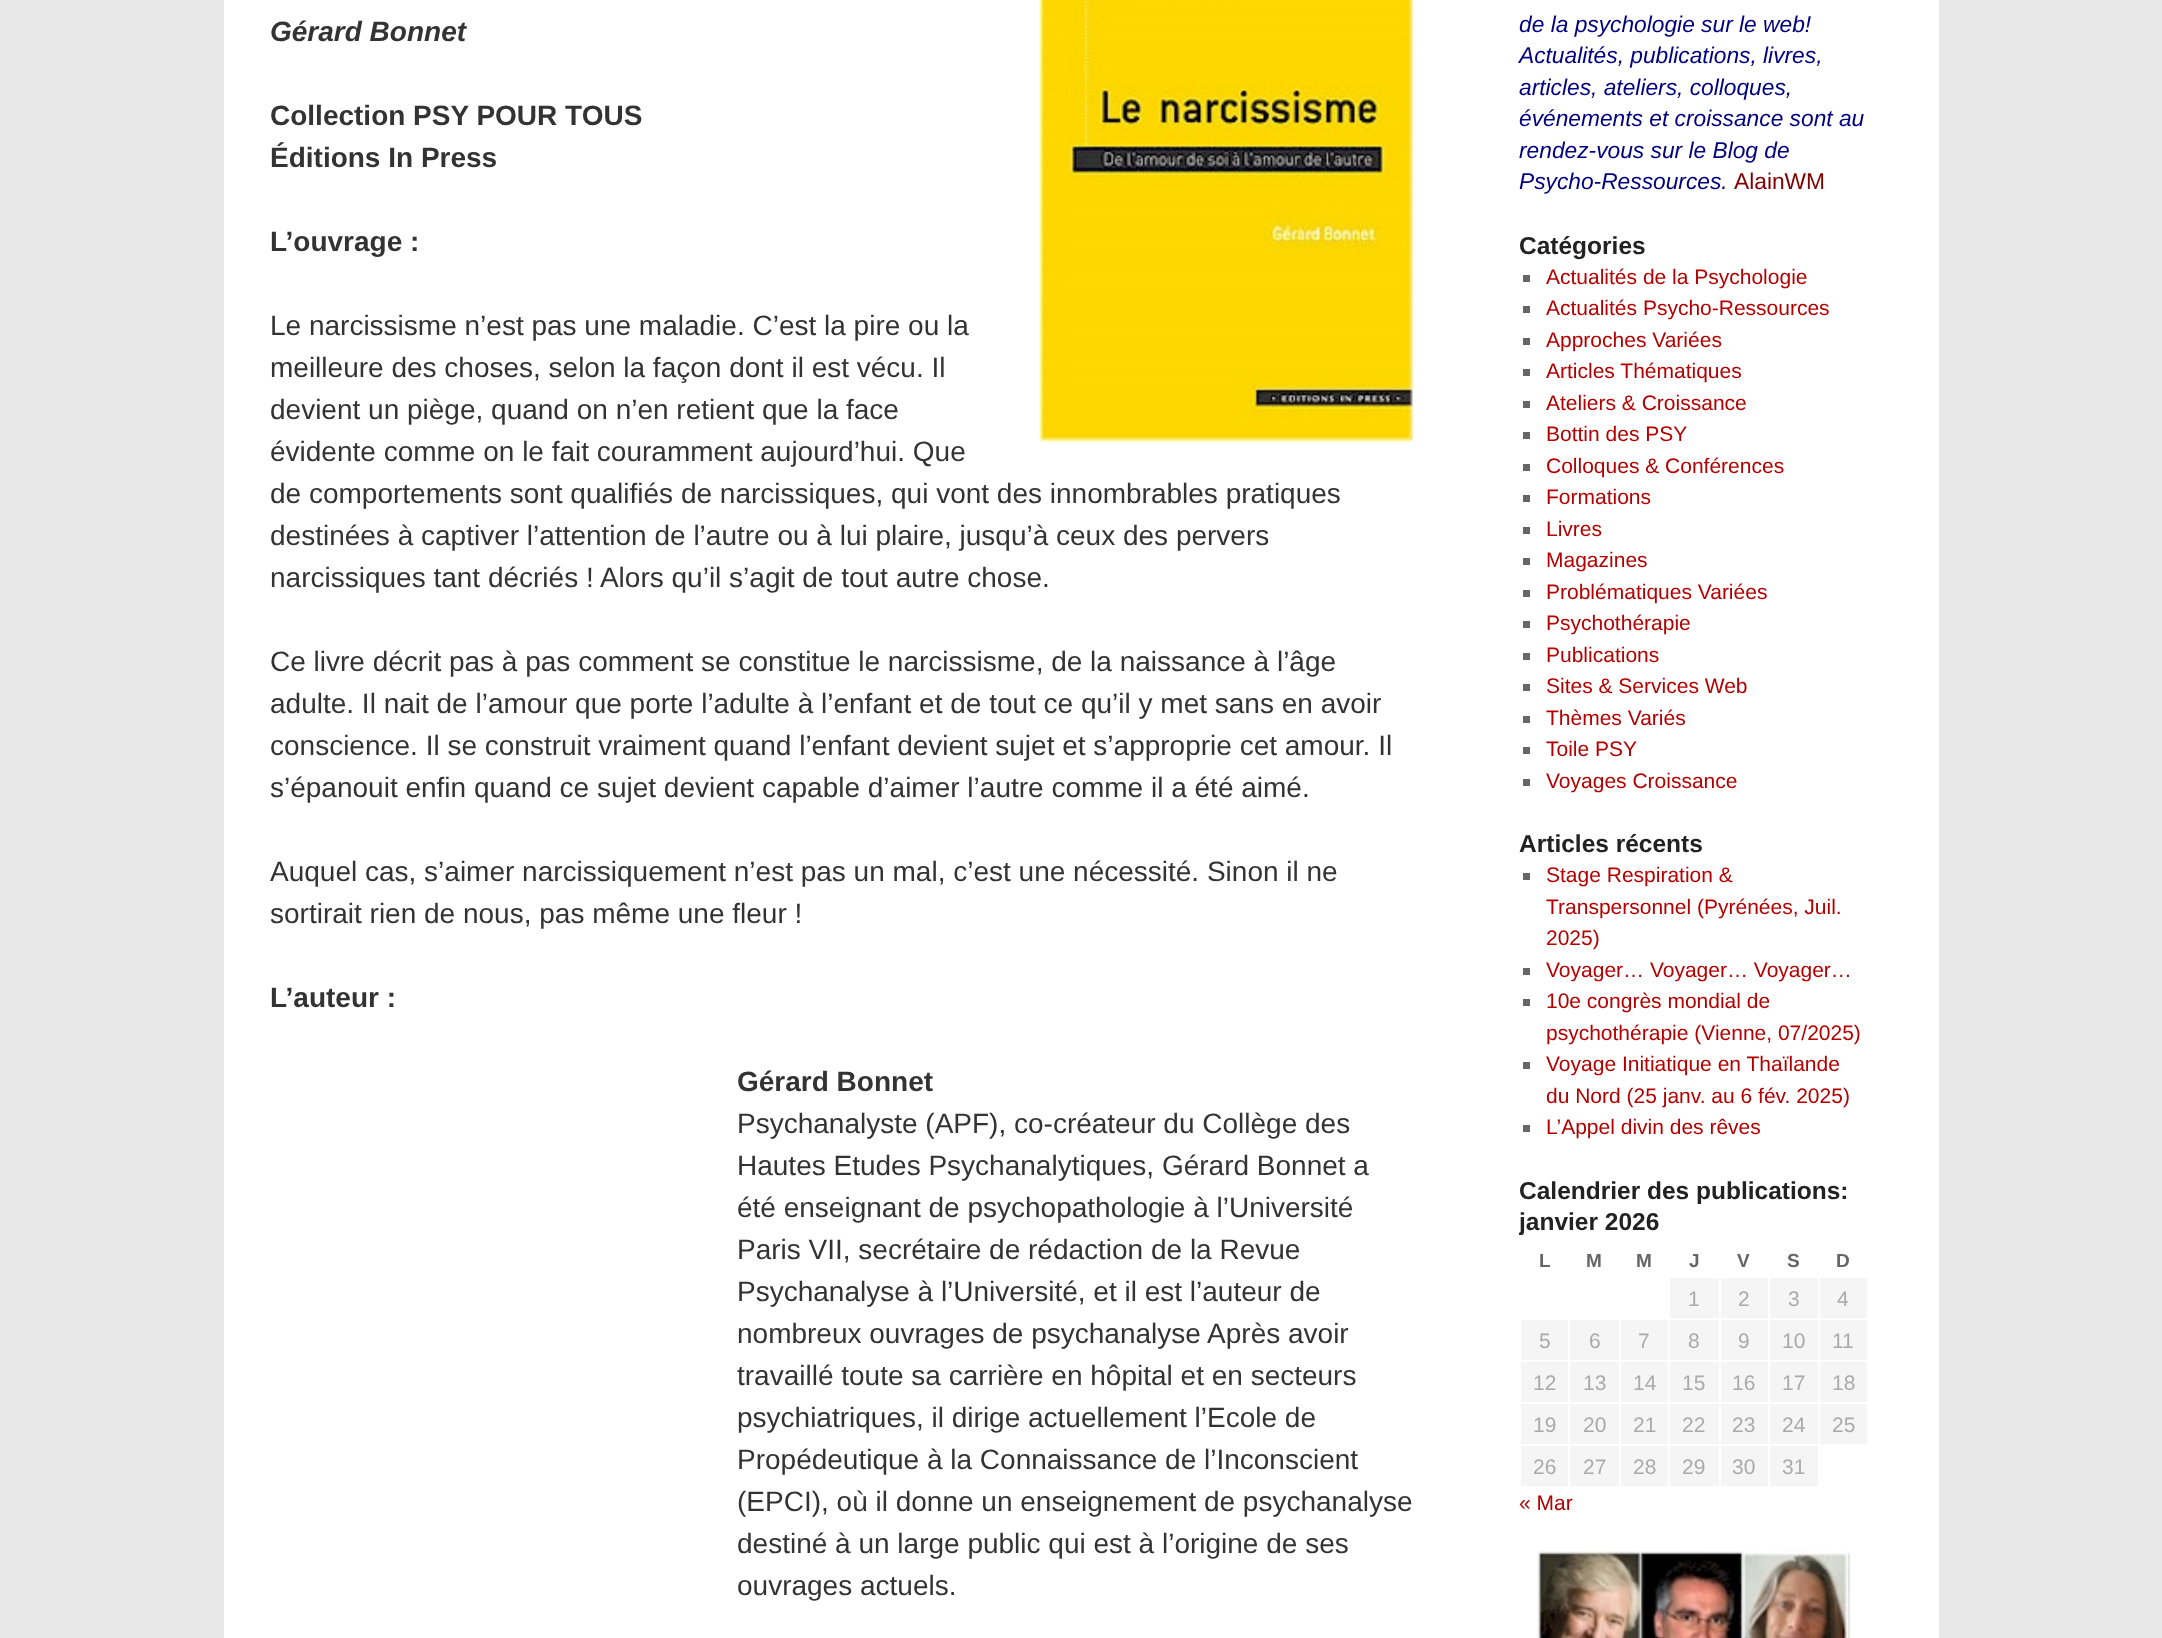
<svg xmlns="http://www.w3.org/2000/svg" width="2162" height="1638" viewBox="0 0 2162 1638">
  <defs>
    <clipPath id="clip1"><rect x="1519" y="0" width="385" height="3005"/></clipPath>
  </defs>
  <rect width="100%" height="100%" fill="rgb(232,232,232)"/>
  <rect x="224" y="0" width="1715" height="1638" fill="rgb(255,255,255)"/>
  <text x="270" y="41" font-family="Liberation Sans" font-size="28" font-weight="bold" font-style="italic" fill="rgb(51,51,51)">Gérard Bonnet</text>
  <image x="1039" y="0" width="375" height="443" href="pic1.png"/>
  <g font-family="Liberation Sans" font-size="28" font-weight="bold" fill="rgb(51,51,51)">
    <text>
      <tspan x="270" y="125">Collection PSY POUR TOUS</tspan>
      <tspan x="270" y="167">Éditions In Press</tspan>
    </text>
    <text x="270" y="251">L’ouvrage :</text>
  </g>
  <g font-family="Liberation Sans" font-size="28" fill="rgb(51,51,51)">
    <text>
      <tspan x="270" y="335">Le narcissisme n’est pas une maladie. C’est la pire ou la</tspan>
      <tspan x="270" y="377">meilleure des choses, selon la façon dont il est vécu. Il</tspan>
      <tspan x="270" y="419">devient un piège, quand on n’en retient que la face</tspan>
      <tspan x="270" y="461">évidente comme on le fait couramment aujourd’hui. Que</tspan>
      <tspan x="270" y="503">de comportements sont qualifiés de narcissiques, qui vont des innombrables pratiques</tspan>
      <tspan x="270" y="545">destinées à captiver l’attention de l’autre ou à lui plaire, jusqu’à ceux des pervers</tspan>
      <tspan x="270" y="587">narcissiques tant décriés ! Alors qu’il s’agit de tout autre chose.</tspan>
    </text>
    <text>
      <tspan x="270" y="671">Ce livre décrit pas à pas comment se constitue le narcissisme, de la naissance à l’âge</tspan>
      <tspan x="270" y="713">adulte. Il nait de l’amour que porte l’adulte à l’enfant et de tout ce qu’il y met sans en avoir</tspan>
      <tspan x="270" y="755">conscience. Il se construit vraiment quand l’enfant devient sujet et s’approprie cet amour. Il</tspan>
      <tspan x="270" y="797">s’épanouit enfin quand ce sujet devient capable d’aimer l’autre comme il a été aimé.</tspan>
    </text>
    <text>
      <tspan x="270" y="881">Auquel cas, s’aimer narcissiquement n’est pas un mal, c’est une nécessité. Sinon il ne</tspan>
      <tspan x="270" y="923">sortirait rien de nous, pas même une fleur !</tspan>
    </text>
  </g>
  <g font-family="Liberation Sans" font-size="28" font-weight="bold" fill="rgb(51,51,51)">
    <text x="270" y="1007">L’auteur :</text>
    <text x="737" y="1091">Gérard Bonnet</text>
  </g>
  <g font-family="Liberation Sans" font-size="28" fill="rgb(51,51,51)">
    <text>
      <tspan x="737" y="1133">Psychanalyste (APF), co-créateur du Collège des</tspan>
      <tspan x="737" y="1175">Hautes Etudes Psychanalytiques, Gérard Bonnet a</tspan>
      <tspan x="737" y="1217">été enseignant de psychopathologie à l’Université</tspan>
      <tspan x="737" y="1259">Paris VII, secrétaire de rédaction de la Revue</tspan>
      <tspan x="737" y="1301">Psychanalyse à l’Université, et il est l’auteur de</tspan>
      <tspan x="737" y="1343">nombreux ouvrages de psychanalyse Après avoir</tspan>
      <tspan x="737" y="1385">travaillé toute sa carrière en hôpital et en secteurs</tspan>
      <tspan x="737" y="1427">psychiatriques, il dirige actuellement l’Ecole de</tspan>
      <tspan x="737" y="1469">Propédeutique à la Connaissance de l’Inconscient</tspan>
      <tspan x="737" y="1511">(EPCI), où il donne un enseignement de psychanalyse</tspan>
      <tspan x="737" y="1553">destiné à un large public qui est à l’origine de ses</tspan>
      <tspan x="737" y="1595">ouvrages actuels.</tspan>
    </text>
  </g>
  <g font-family="Liberation Sans" font-size="22.75" font-style="italic" fill="rgb(0,0,128)">
    <text>
      <tspan x="1519" y="32">de la psychologie sur le web!</tspan>
      <tspan x="1519" y="63">Actualités, publications, livres,</tspan>
      <tspan x="1519" y="95">articles, ateliers, colloques,</tspan>
      <tspan x="1519" y="126">événements et croissance sont au</tspan>
      <tspan x="1519" y="158">rendez-vous sur le Blog de</tspan>
      <tspan x="1519" y="189">Psycho-Ressources.</tspan>
    </text>
  </g>
  <text x="1734" y="189" font-family="Liberation Sans" font-size="22.75" fill="rgb(128,0,0)">AlainWM</text>
  <text x="1519" y="254" font-family="Liberation Sans" font-size="24.5" font-weight="bold" fill="rgb(34,34,34)">Catégories</text>
  <rect x="1523" y="275" width="7" height="7" fill="rgb(102,102,102)"/>
  <text x="1546" y="284" font-family="Liberation Sans" font-size="21" fill="rgb(180,0,0)">Actualités de la Psychologie</text>
  <rect x="1523" y="306" width="7" height="7" fill="rgb(102,102,102)"/>
  <text x="1546" y="315" font-family="Liberation Sans" font-size="21" fill="rgb(180,0,0)">Actualités Psycho-Ressources</text>
  <rect x="1523" y="338" width="7" height="7" fill="rgb(102,102,102)"/>
  <text x="1546" y="347" font-family="Liberation Sans" font-size="21" fill="rgb(180,0,0)">Approches Variées</text>
  <rect x="1523" y="369" width="7" height="7" fill="rgb(102,102,102)"/>
  <text x="1546" y="378" font-family="Liberation Sans" font-size="21" fill="rgb(180,0,0)">Articles Thématiques</text>
  <rect x="1523" y="401" width="7" height="7" fill="rgb(102,102,102)"/>
  <text x="1546" y="410" font-family="Liberation Sans" font-size="21" fill="rgb(180,0,0)">Ateliers &amp; Croissance</text>
  <rect x="1523" y="432" width="7" height="7" fill="rgb(102,102,102)"/>
  <text x="1546" y="441" font-family="Liberation Sans" font-size="21" fill="rgb(180,0,0)">Bottin des PSY</text>
  <rect x="1523" y="464" width="7" height="7" fill="rgb(102,102,102)"/>
  <text x="1546" y="473" font-family="Liberation Sans" font-size="21" fill="rgb(180,0,0)">Colloques &amp; Conférences</text>
  <rect x="1523" y="495" width="7" height="7" fill="rgb(102,102,102)"/>
  <text x="1546" y="504" font-family="Liberation Sans" font-size="21" fill="rgb(180,0,0)">Formations</text>
  <rect x="1523" y="527" width="7" height="7" fill="rgb(102,102,102)"/>
  <text x="1546" y="536" font-family="Liberation Sans" font-size="21" fill="rgb(180,0,0)">Livres</text>
  <rect x="1523" y="558" width="7" height="7" fill="rgb(102,102,102)"/>
  <text x="1546" y="567" font-family="Liberation Sans" font-size="21" fill="rgb(180,0,0)">Magazines</text>
  <rect x="1523" y="590" width="7" height="7" fill="rgb(102,102,102)"/>
  <text x="1546" y="599" font-family="Liberation Sans" font-size="21" fill="rgb(180,0,0)">Problématiques Variées</text>
  <rect x="1523" y="621" width="7" height="7" fill="rgb(102,102,102)"/>
  <text x="1546" y="630" font-family="Liberation Sans" font-size="21" fill="rgb(180,0,0)">Psychothérapie</text>
  <rect x="1523" y="653" width="7" height="7" fill="rgb(102,102,102)"/>
  <text x="1546" y="662" font-family="Liberation Sans" font-size="21" fill="rgb(180,0,0)">Publications</text>
  <rect x="1523" y="684" width="7" height="7" fill="rgb(102,102,102)"/>
  <text x="1546" y="693" font-family="Liberation Sans" font-size="21" fill="rgb(180,0,0)">Sites &amp; Services Web</text>
  <rect x="1523" y="716" width="7" height="7" fill="rgb(102,102,102)"/>
  <text x="1546" y="725" font-family="Liberation Sans" font-size="21" fill="rgb(180,0,0)">Thèmes Variés</text>
  <rect x="1523" y="747" width="7" height="7" fill="rgb(102,102,102)"/>
  <text x="1546" y="756" font-family="Liberation Sans" font-size="21" fill="rgb(180,0,0)">Toile PSY</text>
  <rect x="1523" y="779" width="7" height="7" fill="rgb(102,102,102)"/>
  <text x="1546" y="788" font-family="Liberation Sans" font-size="21" fill="rgb(180,0,0)">Voyages Croissance</text>
  <text x="1519" y="852" font-family="Liberation Sans" font-size="24.5" font-weight="bold" fill="rgb(34,34,34)">Articles récents</text>
  <rect x="1523" y="873" width="7" height="7" fill="rgb(102,102,102)"/>
  <g font-family="Liberation Sans" font-size="21" fill="rgb(180,0,0)">
    <text>
      <tspan x="1546" y="882">Stage Respiration &amp;</tspan>
      <tspan x="1546" y="914">Transpersonnel (Pyrénées, Juil.</tspan>
      <tspan x="1546" y="945">2025)</tspan>
    </text>
  </g>
  <rect x="1523" y="968" width="7" height="7" fill="rgb(102,102,102)"/>
  <text x="1546" y="977" font-family="Liberation Sans" font-size="21" fill="rgb(180,0,0)">Voyager… Voyager… Voyager…</text>
  <rect x="1523" y="999" width="7" height="7" fill="rgb(102,102,102)"/>
  <g font-family="Liberation Sans" font-size="21" fill="rgb(180,0,0)">
    <text>
      <tspan x="1546" y="1008">10e congrès mondial de</tspan>
      <tspan x="1546" y="1040">psychothérapie (Vienne, 07/2025)</tspan>
    </text>
  </g>
  <rect x="1523" y="1062" width="7" height="7" fill="rgb(102,102,102)"/>
  <g font-family="Liberation Sans" font-size="21" fill="rgb(180,0,0)">
    <text>
      <tspan x="1546" y="1071">Voyage Initiatique en Thaïlande</tspan>
      <tspan x="1546" y="1103">du Nord (25 janv. au 6 fév. 2025)</tspan>
    </text>
  </g>
  <rect x="1523" y="1125" width="7" height="7" fill="rgb(102,102,102)"/>
  <text x="1546" y="1134" font-family="Liberation Sans" font-size="21" fill="rgb(180,0,0)">L’Appel divin des rêves</text>
  <text x="1519" y="1199" font-family="Liberation Sans" font-size="24.5" font-weight="bold" fill="rgb(34,34,34)">Calendrier des publications:</text>
  <g clip-path="url(#clip1)">
    <text x="1519" y="1230" font-family="Liberation Sans" font-size="24.5" font-weight="bold" fill="rgb(34,34,34)">janvier 2026</text>
  </g>
  <g font-family="Liberation Sans" font-size="19" font-weight="bold" fill="rgb(102,102,102)">
    <text x="1539" y="1267">L</text>
    <text x="1586" y="1267">M</text>
    <text x="1636" y="1267">M</text>
    <text x="1689" y="1267">J</text>
    <text x="1737" y="1267">V</text>
    <text x="1787" y="1267">S</text>
    <text x="1836" y="1267">D</text>
  </g>
  <rect x="1670" y="1278" width="49" height="40" fill="rgb(245,245,245)"/>
  <text x="1688" y="1306" font-family="Liberation Sans" font-size="21" fill="rgb(170,170,170)">1</text>
  <rect x="1721" y="1278" width="47" height="40" fill="rgb(245,245,245)"/>
  <text x="1738" y="1306" font-family="Liberation Sans" font-size="21" fill="rgb(170,170,170)">2</text>
  <rect x="1770" y="1278" width="48" height="40" fill="rgb(245,245,245)"/>
  <text x="1788" y="1306" font-family="Liberation Sans" font-size="21" fill="rgb(170,170,170)">3</text>
  <rect x="1820" y="1278" width="47" height="40" fill="rgb(245,245,245)"/>
  <text x="1837" y="1306" font-family="Liberation Sans" font-size="21" fill="rgb(170,170,170)">4</text>
  <rect x="1521" y="1320" width="47" height="40" fill="rgb(245,245,245)"/>
  <text x="1539" y="1348" font-family="Liberation Sans" font-size="21" fill="rgb(170,170,170)">5</text>
  <rect x="1570" y="1320" width="49" height="40" fill="rgb(245,245,245)"/>
  <text x="1589" y="1348" font-family="Liberation Sans" font-size="21" fill="rgb(170,170,170)">6</text>
  <rect x="1621" y="1320" width="47" height="40" fill="rgb(245,245,245)"/>
  <text x="1638" y="1348" font-family="Liberation Sans" font-size="21" fill="rgb(170,170,170)">7</text>
  <rect x="1670" y="1320" width="49" height="40" fill="rgb(245,245,245)"/>
  <text x="1688" y="1348" font-family="Liberation Sans" font-size="21" fill="rgb(170,170,170)">8</text>
  <rect x="1721" y="1320" width="47" height="40" fill="rgb(245,245,245)"/>
  <text x="1738" y="1348" font-family="Liberation Sans" font-size="21" fill="rgb(170,170,170)">9</text>
  <rect x="1770" y="1320" width="48" height="40" fill="rgb(245,245,245)"/>
  <text x="1782" y="1348" font-family="Liberation Sans" font-size="21" fill="rgb(170,170,170)">10</text>
  <rect x="1820" y="1320" width="47" height="40" fill="rgb(245,245,245)"/>
  <text x="1832" y="1348" font-family="Liberation Sans" font-size="21" fill="rgb(170,170,170)">11</text>
  <rect x="1521" y="1362" width="47" height="40" fill="rgb(245,245,245)"/>
  <text x="1533" y="1390" font-family="Liberation Sans" font-size="21" fill="rgb(170,170,170)">12</text>
  <rect x="1570" y="1362" width="49" height="40" fill="rgb(245,245,245)"/>
  <text x="1583" y="1390" font-family="Liberation Sans" font-size="21" fill="rgb(170,170,170)">13</text>
  <rect x="1621" y="1362" width="47" height="40" fill="rgb(245,245,245)"/>
  <text x="1633" y="1390" font-family="Liberation Sans" font-size="21" fill="rgb(170,170,170)">14</text>
  <rect x="1670" y="1362" width="49" height="40" fill="rgb(245,245,245)"/>
  <text x="1682" y="1390" font-family="Liberation Sans" font-size="21" fill="rgb(170,170,170)">15</text>
  <rect x="1721" y="1362" width="47" height="40" fill="rgb(245,245,245)"/>
  <text x="1732" y="1390" font-family="Liberation Sans" font-size="21" fill="rgb(170,170,170)">16</text>
  <rect x="1770" y="1362" width="48" height="40" fill="rgb(245,245,245)"/>
  <text x="1782" y="1390" font-family="Liberation Sans" font-size="21" fill="rgb(170,170,170)">17</text>
  <rect x="1820" y="1362" width="47" height="40" fill="rgb(245,245,245)"/>
  <text x="1832" y="1390" font-family="Liberation Sans" font-size="21" fill="rgb(170,170,170)">18</text>
  <rect x="1521" y="1404" width="47" height="40" fill="rgb(245,245,245)"/>
  <text x="1533" y="1432" font-family="Liberation Sans" font-size="21" fill="rgb(170,170,170)">19</text>
  <rect x="1570" y="1404" width="49" height="40" fill="rgb(245,245,245)"/>
  <text x="1583" y="1432" font-family="Liberation Sans" font-size="21" fill="rgb(170,170,170)">20</text>
  <rect x="1621" y="1404" width="47" height="40" fill="rgb(245,245,245)"/>
  <text x="1633" y="1432" font-family="Liberation Sans" font-size="21" fill="rgb(170,170,170)">21</text>
  <rect x="1670" y="1404" width="49" height="40" fill="rgb(245,245,245)"/>
  <text x="1682" y="1432" font-family="Liberation Sans" font-size="21" fill="rgb(170,170,170)">22</text>
  <rect x="1721" y="1404" width="47" height="40" fill="rgb(245,245,245)"/>
  <text x="1732" y="1432" font-family="Liberation Sans" font-size="21" fill="rgb(170,170,170)">23</text>
  <rect x="1770" y="1404" width="48" height="40" fill="rgb(245,245,245)"/>
  <text x="1782" y="1432" font-family="Liberation Sans" font-size="21" fill="rgb(170,170,170)">24</text>
  <rect x="1820" y="1404" width="47" height="40" fill="rgb(245,245,245)"/>
  <text x="1832" y="1432" font-family="Liberation Sans" font-size="21" fill="rgb(170,170,170)">25</text>
  <rect x="1521" y="1446" width="47" height="40" fill="rgb(245,245,245)"/>
  <text x="1533" y="1474" font-family="Liberation Sans" font-size="21" fill="rgb(170,170,170)">26</text>
  <rect x="1570" y="1446" width="49" height="40" fill="rgb(245,245,245)"/>
  <text x="1583" y="1474" font-family="Liberation Sans" font-size="21" fill="rgb(170,170,170)">27</text>
  <rect x="1621" y="1446" width="47" height="40" fill="rgb(245,245,245)"/>
  <text x="1633" y="1474" font-family="Liberation Sans" font-size="21" fill="rgb(170,170,170)">28</text>
  <rect x="1670" y="1446" width="49" height="40" fill="rgb(245,245,245)"/>
  <text x="1682" y="1474" font-family="Liberation Sans" font-size="21" fill="rgb(170,170,170)">29</text>
  <rect x="1721" y="1446" width="47" height="40" fill="rgb(245,245,245)"/>
  <text x="1732" y="1474" font-family="Liberation Sans" font-size="21" fill="rgb(170,170,170)">30</text>
  <rect x="1770" y="1446" width="48" height="40" fill="rgb(245,245,245)"/>
  <text x="1782" y="1474" font-family="Liberation Sans" font-size="21" fill="rgb(170,170,170)">31</text>
  <text x="1519" y="1510" font-family="Liberation Sans" font-size="21" fill="rgb(180,0,0)">« Mar</text>
  <image x="1536" y="1550" width="315" height="88" href="pic2.png"/>
</svg>
